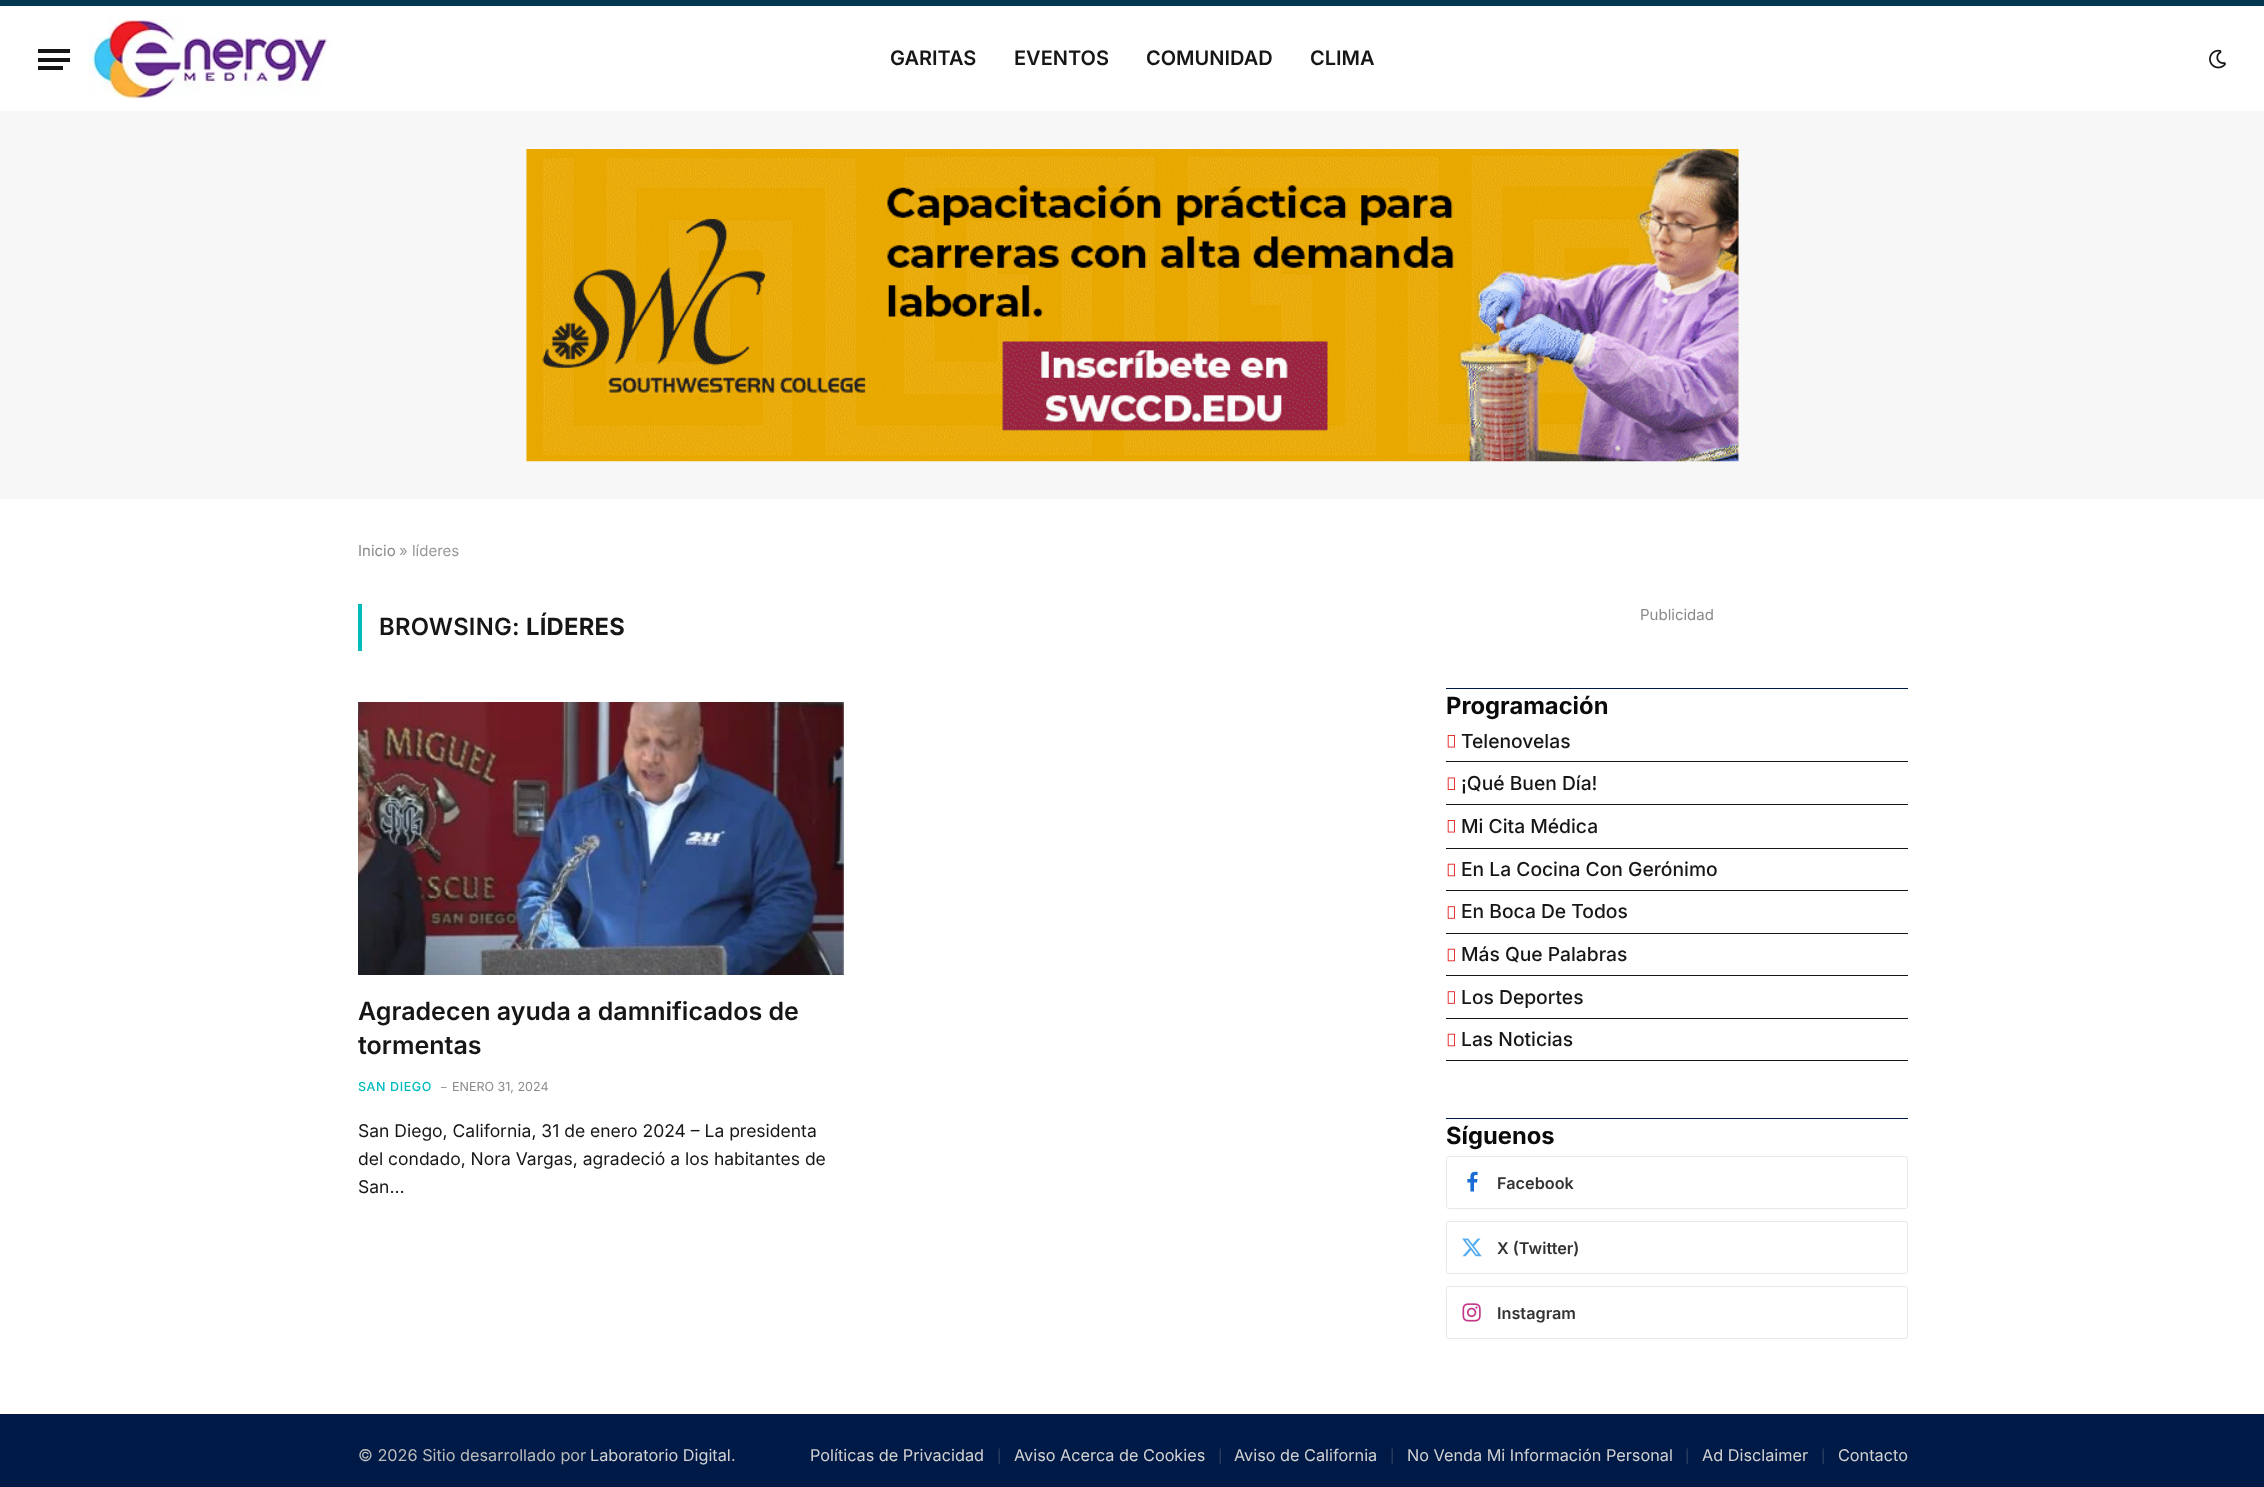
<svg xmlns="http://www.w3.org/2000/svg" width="2264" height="1487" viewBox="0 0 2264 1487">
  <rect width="100%" height="100%" fill="rgb(255,255,255)"/>
  <rect x="0" y="0" width="2264" height="6" fill="rgb(3,55,79)"/>
  <rect x="38" y="66" width="25" height="4" fill="rgb(22,22,22)"/>
  <rect x="38" y="49" width="32" height="4" fill="rgb(22,22,22)"/>
  <rect x="38" y="58" width="32" height="4" fill="rgb(22,22,22)"/>
  <image x="89" y="19" width="242" height="80" href="pic1.png"/>
  <g font-family="Inter" font-size="20" font-weight="600" fill="rgb(22,22,22)">
    <text x="890" y="65">GARITAS</text>
    <text x="1014" y="65">EVENTOS</text>
    <text x="1146" y="65">COMUNIDAD</text>
    <text x="1310" y="65">CLIMA</text>
  </g>
  <image x="2209" y="49" width="17" height="20" href="pic2.png"/>
  <rect x="0" y="111" width="2264" height="388" fill="rgb(247,247,247)"/>
  <image x="526" y="149" width="1213" height="313" href="pic3.png"/>
  <text x="358" y="556" font-family="Inter" font-size="15" fill="rgb(138,138,138)">Inicio</text>
  <text x="399" y="556" font-family="Inter" font-size="15" fill="rgb(153,153,153)">» líderes</text>
  <rect x="358" y="604" width="4" height="47" fill="rgb(0,187,189)"/>
  <text x="379" y="635" font-family="Inter" font-size="23.75" font-weight="600" letter-spacing="0.25" fill="rgb(22,22,22)">BROWSING:</text>
  <text x="526" y="635" font-family="Inter" font-size="23.75" font-weight="bold" letter-spacing="0.25" fill="rgb(22,22,22)">LÍDERES</text>
  <image x="358" y="702" width="486" height="273" href="pic4.png"/>
  <g font-family="Inter" font-size="25" font-weight="600" fill="rgb(22,22,22)">
    <text>
      <tspan x="358" y="1020">Agradecen ayuda a damnificados de</tspan>
      <tspan x="358" y="1054">tormentas</tspan>
    </text>
  </g>
  <text x="358" y="1091" font-family="Inter" font-size="12.5" font-weight="500" letter-spacing="0.6" fill="rgb(0,187,189)">SAN DIEGO</text>
  <text x="441" y="1091" font-family="Inter" font-size="11" fill="rgb(138,138,138)">–</text>
  <text x="452" y="1091" font-family="Inter" font-size="12.5" fill="rgb(138,138,138)">ENERO 31, 2024</text>
  <g font-family="Inter" font-size="17.5" fill="rgb(22,22,22)">
    <text>
      <tspan x="358" y="1137">San Diego, California, 31 de enero 2024 – La presidenta</tspan>
      <tspan x="358" y="1165">del condado, Nora Vargas, agradeció a los habitantes de</tspan>
      <tspan x="358" y="1193">San…</tspan>
    </text>
  </g>
  <text x="1640" y="620" font-family="Inter" font-size="15" fill="rgb(138,138,138)">Publicidad</text>
  <rect x="1446" y="688" width="462" height="1" fill="rgb(0,26,71)"/>
  <text x="1446" y="714" font-family="Inter" font-size="23.75" font-weight="bold" fill="rgb(10,10,10)">Programación</text>
  <rect x="1446" y="761" width="462" height="1" fill="rgb(22,22,22)"/>
  <image x="1447" y="735" width="8" height="13" href="pic5.png"/>
  <text x="1461" y="748" font-family="Inter" font-size="19.25" font-weight="500" fill="rgb(22,22,22)">Telenovelas</text>
  <rect x="1446" y="804" width="462" height="1" fill="rgb(22,22,22)"/>
  <image x="1447" y="777" width="8" height="13" href="pic6.png"/>
  <text x="1461" y="790" font-family="Inter" font-size="19.25" font-weight="500" fill="rgb(22,22,22)">¡Qué Buen Día!</text>
  <rect x="1446" y="848" width="462" height="1" fill="rgb(22,22,22)"/>
  <image x="1447" y="820" width="8" height="13" href="pic5.png"/>
  <text x="1461" y="833" font-family="Inter" font-size="19.25" font-weight="500" fill="rgb(22,22,22)">Mi Cita Médica</text>
  <rect x="1446" y="890" width="462" height="1" fill="rgb(22,22,22)"/>
  <image x="1447" y="863" width="8" height="14" href="pic7.png"/>
  <text x="1461" y="876" font-family="Inter" font-size="19.25" font-weight="500" fill="rgb(22,22,22)">En La Cocina Con Gerónimo</text>
  <rect x="1446" y="933" width="462" height="1" fill="rgb(22,22,22)"/>
  <image x="1447" y="906" width="8" height="13" href="pic8.png"/>
  <text x="1461" y="918" font-family="Inter" font-size="19.25" font-weight="500" fill="rgb(22,22,22)">En Boca De Todos</text>
  <rect x="1446" y="975" width="462" height="1" fill="rgb(22,22,22)"/>
  <image x="1447" y="948" width="8" height="14" href="pic7.png"/>
  <text x="1461" y="961" font-family="Inter" font-size="19.25" font-weight="500" fill="rgb(22,22,22)">Más Que Palabras</text>
  <rect x="1446" y="1018" width="462" height="1" fill="rgb(22,22,22)"/>
  <image x="1447" y="991" width="8" height="13" href="pic8.png"/>
  <text x="1461" y="1004" font-family="Inter" font-size="19.25" font-weight="500" fill="rgb(22,22,22)">Los Deportes</text>
  <rect x="1446" y="1060" width="462" height="1" fill="rgb(22,22,22)"/>
  <image x="1447" y="1033" width="8" height="14" href="pic7.png"/>
  <text x="1461" y="1046" font-family="Inter" font-size="19.25" font-weight="500" fill="rgb(22,22,22)">Las Noticias</text>
  <rect x="1446" y="1118" width="462" height="1" fill="rgb(0,26,71)"/>
  <text x="1446" y="1144" font-family="Inter" font-size="23.75" font-weight="bold" fill="rgb(10,10,10)">Síguenos</text>
  <rect x="1446.5" y="1156.5" width="461" height="52" rx="2" fill="none" stroke="rgb(232,232,232)"/>
  <image x="1467" y="1171" width="11" height="21" href="pic9.png"/>
  <text x="1497" y="1189" font-family="Inter" font-size="16.25" font-weight="600" fill="rgb(51,51,51)">Facebook</text>
  <rect x="1446.5" y="1221.5" width="461" height="52" rx="2" fill="none" stroke="rgb(232,232,232)"/>
  <image x="1462" y="1238" width="20" height="19" href="pic10.png"/>
  <text x="1497" y="1254" font-family="Inter" font-size="16.25" font-weight="600" fill="rgb(51,51,51)">X (Twitter)</text>
  <rect x="1446.5" y="1286.5" width="461" height="52" rx="2" fill="none" stroke="rgb(232,232,232)"/>
  <image x="1462" y="1303" width="19" height="19" href="pic11.png"/>
  <text x="1497" y="1319" font-family="Inter" font-size="16.25" font-weight="600" fill="rgb(51,51,51)">Instagram</text>
  <rect x="0" y="1414" width="2264" height="73" fill="rgb(0,26,71)"/>
  <text x="358" y="1461" font-family="Inter" font-size="16.25" fill="rgb(187,187,187)">© 2026 Sitio desarrollado por</text>
  <text x="590" y="1461" font-family="Inter" font-size="16.25" fill="rgb(209,209,209)">Laboratorio Digital</text>
  <text x="731" y="1461" font-family="Inter" font-size="16.25" fill="rgb(187,187,187)">.</text>
  <text x="810" y="1461" font-family="Inter" font-size="16.25" fill="rgb(209,209,209)">Políticas de Privacidad</text>
  <text x="997" y="1461" font-family="Inter" font-size="13" fill="rgb(56,74,106)">|</text>
  <text x="1014" y="1461" font-family="Inter" font-size="16.25" fill="rgb(209,209,209)">Aviso Acerca de Cookies</text>
  <text x="1218" y="1461" font-family="Inter" font-size="13" fill="rgb(56,74,106)">|</text>
  <text x="1234" y="1461" font-family="Inter" font-size="16.25" fill="rgb(209,209,209)">Aviso de California</text>
  <text x="1390" y="1461" font-family="Inter" font-size="13" fill="rgb(56,74,106)">|</text>
  <text x="1407" y="1461" font-family="Inter" font-size="16.25" fill="rgb(209,209,209)">No Venda Mi Información Personal</text>
  <text x="1685" y="1461" font-family="Inter" font-size="13" fill="rgb(56,74,106)">|</text>
  <text x="1702" y="1461" font-family="Inter" font-size="16.25" fill="rgb(209,209,209)">Ad Disclaimer</text>
  <text x="1821" y="1461" font-family="Inter" font-size="13" fill="rgb(56,74,106)">|</text>
  <text x="1838" y="1461" font-family="Inter" font-size="16.25" fill="rgb(209,209,209)">Contacto</text>
</svg>
